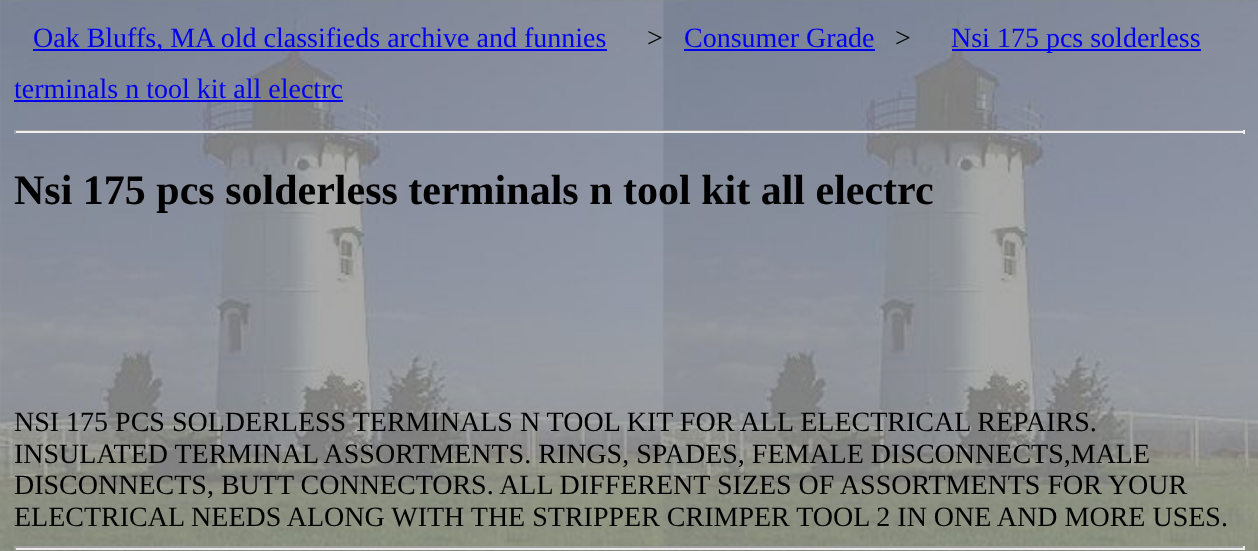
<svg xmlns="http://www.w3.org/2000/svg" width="1258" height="551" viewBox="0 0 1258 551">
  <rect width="100%" height="100%" fill="rgb(255,255,255)"/>
  <image x="0" y="0" width="1258" height="551" href="pic1.png"/>
  <rect x="33" y="49" width="574" height="2" fill="rgb(0,0,238)"/>
  <text x="33" y="47" font-family="Liberation Serif" font-size="28" fill="rgb(0,0,238)">Oak Bluffs, MA old classifieds archive and funnies</text>
  <text x="647" y="47" font-family="Liberation Serif" font-size="28" fill="rgb(0,0,0)">&gt;</text>
  <text x="684" y="47" font-family="Liberation Serif" font-size="28" fill="rgb(0,0,238)">Consumer Grade</text>
  <rect x="684" y="49" width="191" height="2" fill="rgb(0,0,238)"/>
  <text x="895" y="47" font-family="Liberation Serif" font-size="28" fill="rgb(0,0,0)">&gt;</text>
  <rect x="952" y="49" width="249" height="2" fill="rgb(0,0,238)"/>
  <g font-family="Liberation Serif" font-size="28" fill="rgb(0,0,238)">
    <text x="951" y="47">Nsi 175 pcs solderless</text>
    <text x="14" y="98">terminals n tool kit all electrc</text>
  </g>
  <rect x="14" y="100" width="329" height="2" fill="rgb(0,0,238)"/>
  <rect x="14" y="130" width="1230" height="1" fill="rgb(159,159,159)"/>
  <rect x="1243" y="130" width="2" height="4" fill="rgb(238,238,238)"/>
  <rect x="14" y="131" width="1230" height="2" fill="rgb(238,238,238)"/>
  <rect x="14" y="130" width="2" height="4" fill="rgb(159,159,159)"/>
  <text x="14" y="204" font-family="Liberation Serif" font-size="42" font-weight="bold" fill="rgb(0,0,0)">Nsi 175 pcs solderless terminals n tool kit all electrc</text>
  <g font-family="Liberation Serif" font-size="28" fill="rgb(0,0,0)">
    <text>
      <tspan x="14" y="431">NSI 175 PCS SOLDERLESS TERMINALS N TOOL KIT FOR ALL ELECTRICAL REPAIRS.</tspan>
      <tspan x="14" y="463">INSULATED TERMINAL ASSORTMENTS. RINGS, SPADES, FEMALE DISCONNECTS,MALE</tspan>
      <tspan x="14" y="494">DISCONNECTS, BUTT CONNECTORS. ALL DIFFERENT SIZES OF ASSORTMENTS FOR YOUR</tspan>
      <tspan x="14" y="526">ELECTRICAL NEEDS ALONG WITH THE STRIPPER CRIMPER TOOL 2 IN ONE AND MORE USES.</tspan>
    </text>
  </g>
  <rect x="14" y="546" width="1230" height="2" fill="rgb(159,159,159)"/>
  <rect x="1243" y="546" width="2" height="4" fill="rgb(238,238,238)"/>
  <rect x="14" y="548" width="1230" height="2" fill="rgb(238,238,238)"/>
  <rect x="14" y="546" width="2" height="4" fill="rgb(159,159,159)"/>
</svg>
